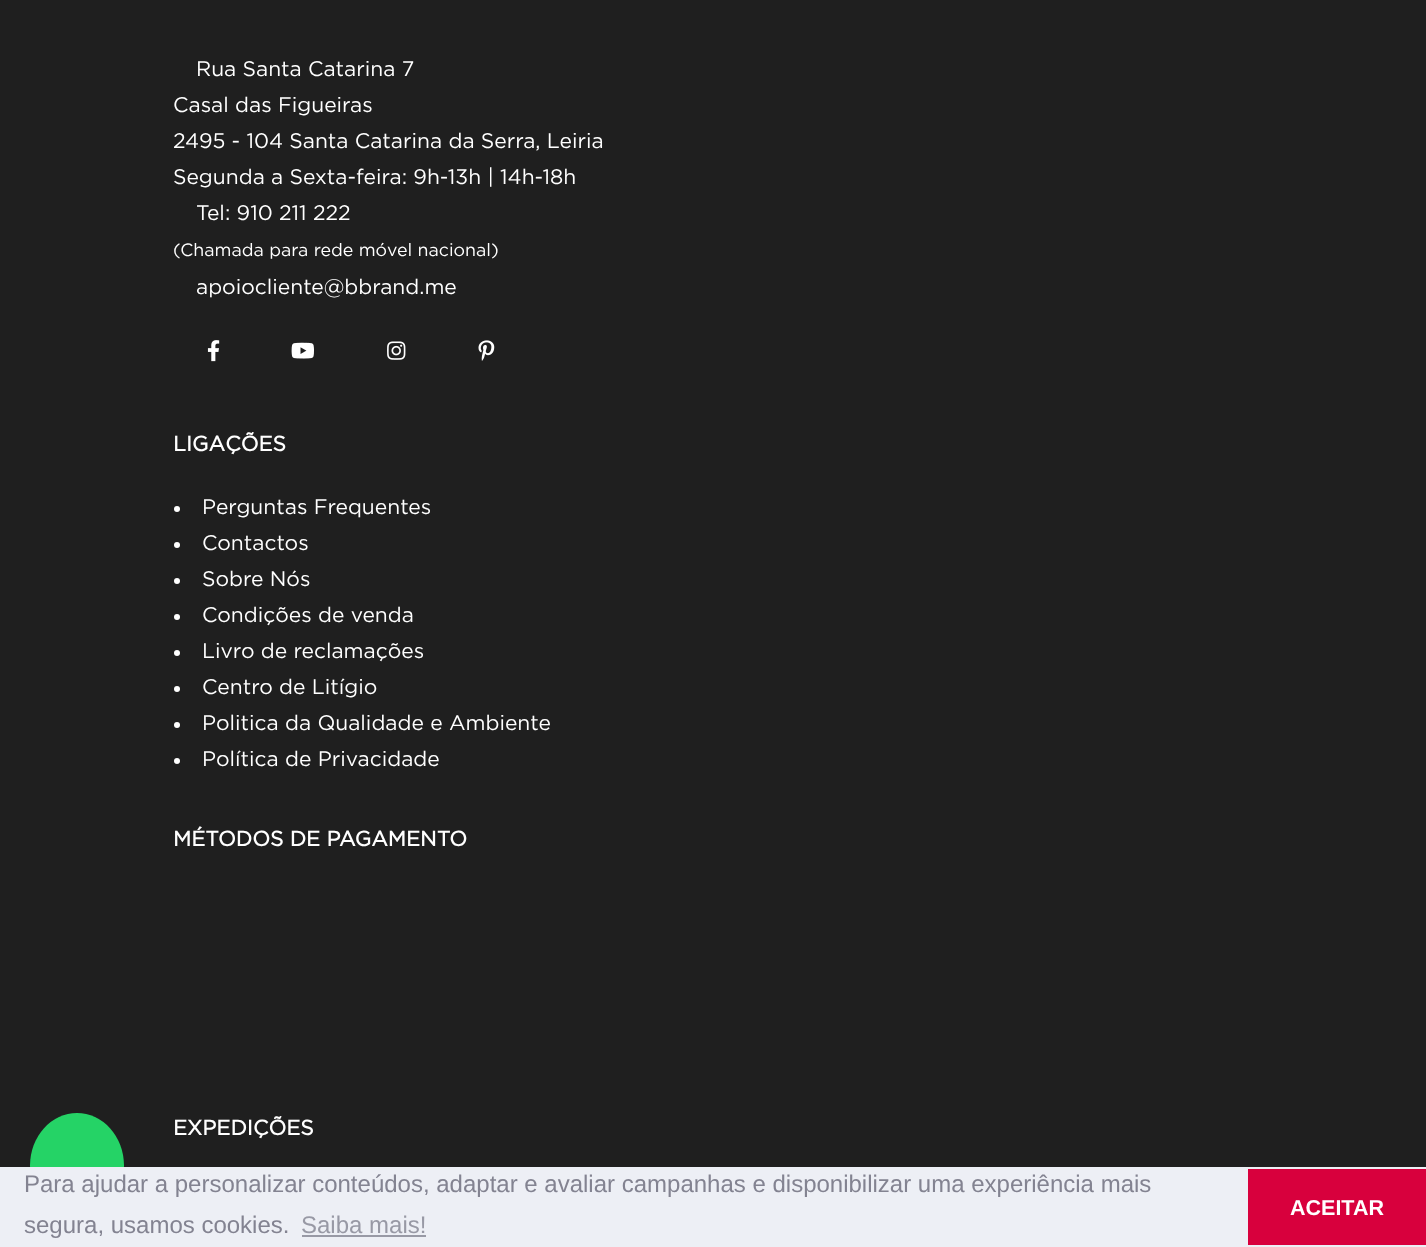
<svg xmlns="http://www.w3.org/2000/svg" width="1426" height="1247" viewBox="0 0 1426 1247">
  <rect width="100%" height="100%" fill="rgb(31,31,31)"/>
  <g font-family="Gotham" font-size="21" fill="rgb(255,255,255)">
    <text x="196" y="76">Rua Santa Catarina 7</text>
    <text>
      <tspan x="173" y="112">Casal das Figueiras</tspan>
      <tspan x="173" y="148">2495 - 104 Santa Catarina da Serra, Leiria</tspan>
      <tspan x="173" y="184">Segunda a Sexta-feira: 9h-13h | 14h-18h</tspan>
    </text>
    <text x="196" y="220">Tel: 910 211 222</text>
  </g>
  <text x="173" y="256" font-family="Gotham" font-size="17.8" fill="rgb(255,255,255)">(Chamada para rede móvel nacional)</text>
  <text x="196" y="294" font-family="Gotham" font-size="21" fill="rgb(255,255,255)">apoiocliente@bbrand.me</text>
  <image x="207" y="340" width="13" height="22" href="pic1.png"/>
  <image x="291" y="342" width="23" height="17" href="pic2.png"/>
  <image x="387" y="341" width="19" height="19" href="pic3.png"/>
  <image x="478" y="340" width="17" height="21" href="pic4.png"/>
  <text x="173" y="451" font-family="Gotham" font-size="21" font-weight="bold" fill="rgb(255,255,255)">LIGAÇÕES</text>
  <circle cx="177" cy="509" r="3" fill="rgb(255,255,255)"/>
  <text x="202" y="514" font-family="Gotham" font-size="21" fill="rgb(255,255,255)">Perguntas Frequentes</text>
  <circle cx="177" cy="545" r="3" fill="rgb(255,255,255)"/>
  <text x="202" y="550" font-family="Gotham" font-size="21" fill="rgb(255,255,255)">Contactos</text>
  <circle cx="177" cy="581" r="3" fill="rgb(255,255,255)"/>
  <text x="202" y="586" font-family="Gotham" font-size="21" fill="rgb(255,255,255)">Sobre Nós</text>
  <circle cx="177" cy="617" r="3" fill="rgb(255,255,255)"/>
  <text x="202" y="622" font-family="Gotham" font-size="21" fill="rgb(255,255,255)">Condições de venda</text>
  <circle cx="177" cy="653" r="3" fill="rgb(255,255,255)"/>
  <text x="202" y="658" font-family="Gotham" font-size="21" fill="rgb(255,255,255)">Livro de reclamações</text>
  <circle cx="177" cy="689" r="3" fill="rgb(255,255,255)"/>
  <text x="202" y="694" font-family="Gotham" font-size="21" fill="rgb(255,255,255)">Centro de Litígio</text>
  <circle cx="177" cy="725" r="3" fill="rgb(255,255,255)"/>
  <text x="202" y="730" font-family="Gotham" font-size="21" fill="rgb(255,255,255)">Politica da Qualidade e Ambiente</text>
  <circle cx="177" cy="761" r="3" fill="rgb(255,255,255)"/>
  <text x="202" y="766" font-family="Gotham" font-size="21" fill="rgb(255,255,255)">Política de Privacidade</text>
  <g font-family="Gotham" font-size="21" font-weight="bold" fill="rgb(255,255,255)">
    <text x="173" y="846">MÉTODOS DE PAGAMENTO</text>
    <text x="173" y="1135">EXPEDIÇÕES</text>
  </g>
  <ellipse cx="77" cy="1165.5" rx="47" ry="52.5" fill="rgb(37,211,102)"/>
  <rect x="0" y="1167" width="1426" height="80" fill="rgb(237,239,245)"/>
  <g font-family="Liberation Sans" font-size="24" fill="rgb(131,131,145)">
    <text>
      <tspan x="24" y="1192">Para ajudar a personalizar conteúdos, adaptar e avaliar campanhas e disponibilizar uma experiência mais</tspan>
      <tspan x="24" y="1233">segura, usamos cookies.</tspan>
    </text>
  </g>
  <text x="301" y="1233" font-family="Liberation Sans" font-size="24" fill="rgb(152,153,165)">Saiba mais!</text>
  <rect x="302" y="1235" width="124" height="2" fill="rgb(152,153,165)"/>
  <rect x="1248" y="1169" width="178" height="76" fill="rgb(216,0,61)"/>
  <text x="1290" y="1215" font-family="Liberation Sans" font-size="21.5" font-weight="bold" fill="rgb(255,255,255)">ACEITAR</text>
</svg>
